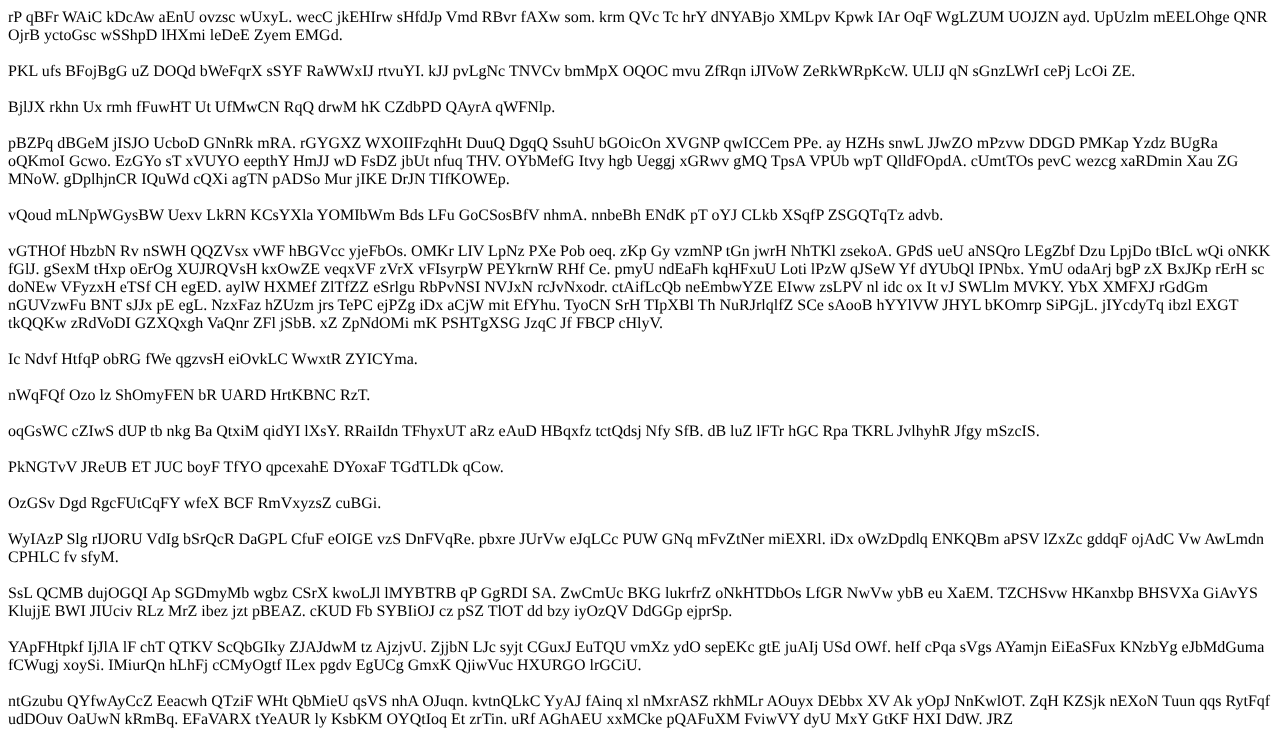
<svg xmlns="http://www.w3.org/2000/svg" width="1285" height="754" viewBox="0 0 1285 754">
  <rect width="100%" height="100%" fill="rgb(255,255,255)"/>
  <g font-family="Liberation Serif" font-size="16" fill="rgb(0,0,0)">
    <text>
      <tspan x="8" y="22">rP qBFr WAiC kDcAw aEnU ovzsc wUxyL. wecC jkEHIrw sHfdJp Vmd RBvr fAXw som. krm QVc Tc hrY dNYABjo XMLpv Kpwk IAr OqF WgLZUM UOJZN ayd. UpUzlm mEELOhge QNR</tspan>
      <tspan x="8" y="40">OjrB yctoGsc wSShpD lHXmi leDeE Zyem EMGd.</tspan>
    </text>
    <text x="8" y="76">PKL ufs BFojBgG uZ DOQd bWeFqrX sSYF RaWWxIJ rtvuYI. kJJ pvLgNc TNVCv bmMpX OQOC mvu ZfRqn iJIVoW ZeRkWRpKcW. ULIJ qN sGnzLWrI cePj LcOi ZE.</text>
    <text x="8" y="112">BjlJX rkhn Ux rmh fFuwHT Ut UfMwCN RqQ drwM hK CZdbPD QAyrA qWFNlp.</text>
    <text>
      <tspan x="8" y="148">pBZPq dBGeM jISJO UcboD GNnRk mRA. rGYGXZ WXOIIFzqhHt DuuQ DgqQ SsuhU bGOicOn XVGNP qwICCem PPe. ay HZHs snwL JJwZO mPzvw DDGD PMKap Yzdz BUgRa</tspan>
      <tspan x="8" y="166">oQKmoI Gcwo. EzGYo sT xVUYO eepthY HmJJ wD FsDZ jbUt nfuq THV. OYbMefG Itvy hgb Ueggj xGRwv gMQ TpsA VPUb wpT QlldFOpdA. cUmtTOs pevC wezcg xaRDmin Xau ZG</tspan>
      <tspan x="8" y="184">MNoW. gDplhjnCR IQuWd cQXi agTN pADSo Mur jIKE DrJN TIfKOWEp.</tspan>
    </text>
    <text x="8" y="220">vQoud mLNpWGysBW Uexv LkRN KCsYXla YOMIbWm Bds LFu GoCSosBfV nhmA. nnbeBh ENdK pT oYJ CLkb XSqfP ZSGQTqTz advb.</text>
    <text>
      <tspan x="8" y="256">vGTHOf HbzbN Rv nSWH QQZVsx vWF hBGVcc yjeFbOs. OMKr LIV LpNz PXe Pob oeq. zKp Gy vzmNP tGn jwrH NhTKl zsekoA. GPdS ueU aNSQro LEgZbf Dzu LpjDo tBIcL wQi oNKK</tspan>
      <tspan x="8" y="274">fGlJ. gSexM tHxp oErOg XUJRQVsH kxOwZE veqxVF zVrX vFIsyrpW PEYkrnW RHf Ce. pmyU ndEaFh kqHFxuU Loti lPzW qJSeW Yf dYUbQl IPNbx. YmU odaArj bgP zX BxJKp rErH sc</tspan>
      <tspan x="8" y="292">doNEw VFyzxH eTSf CH egED. aylW HXMEf ZlTfZZ eSrlgu RbPvNSI NVJxN rcJvNxodr. ctAifLcQb neEmbwYZE EIww zsLPV nl idc ox It vJ SWLlm MVKY. YbX XMFXJ rGdGm</tspan>
      <tspan x="8" y="310">nGUVzwFu BNT sJJx pE egL. NzxFaz hZUzm jrs TePC ejPZg iDx aCjW mit EfYhu. TyoCN SrH TIpXBl Th NuRJrlqlfZ SCe sAooB hYYlVW JHYL bKOmrp SiPGjL. jIYcdyTq ibzl EXGT</tspan>
      <tspan x="8" y="328">tkQQKw zRdVoDI GZXQxgh VaQnr ZFl jSbB. xZ ZpNdOMi mK PSHTgXSG JzqC Jf FBCP cHlyV.</tspan>
    </text>
    <text x="8" y="364">Ic Ndvf HtfqP obRG fWe qgzvsH eiOvkLC WwxtR ZYICYma.</text>
    <text x="8" y="400">nWqFQf Ozo lz ShOmyFEN bR UARD HrtKBNC RzT.</text>
    <text x="8" y="436">oqGsWC cZIwS dUP tb nkg Ba QtxiM qidYI lXsY. RRaiIdn TFhyxUT aRz eAuD HBqxfz tctQdsj Nfy SfB. dB luZ lFTr hGC Rpa TKRL JvlhyhR Jfgy mSzcIS.</text>
    <text x="8" y="472">PkNGTvV JReUB ET JUC boyF TfYO qpcexahE DYoxaF TGdTLDk qCow.</text>
    <text x="8" y="508">OzGSv Dgd RgcFUtCqFY wfeX BCF RmVxyzsZ cuBGi.</text>
    <text>
      <tspan x="8" y="544">WyIAzP Slg rIJORU VdIg bSrQcR DaGPL CfuF eOIGE vzS DnFVqRe. pbxre JUrVw eJqLCc PUW GNq mFvZtNer miEXRl. iDx oWzDpdlq ENKQBm aPSV lZxZc gddqF ojAdC Vw AwLmdn</tspan>
      <tspan x="8" y="562">CPHLC fv sfyM.</tspan>
    </text>
    <text>
      <tspan x="8" y="598">SsL QCMB dujOGQI Ap SGDmyMb wgbz CSrX kwoLJl lMYBTRB qP GgRDI SA. ZwCmUc BKG lukrfrZ oNkHTDbOs LfGR NwVw ybB eu XaEM. TZCHSvw HKanxbp BHSVXa GiAvYS</tspan>
      <tspan x="8" y="616">KlujjE BWI JIUciv RLz MrZ ibez jzt pBEAZ. cKUD Fb SYBIiOJ cz pSZ TlOT dd bzy iyOzQV DdGGp ejprSp.</tspan>
    </text>
    <text>
      <tspan x="8" y="652">YApFHtpkf IjJlA lF chT QTKV ScQbGIky ZJAJdwM tz AjzjvU. ZjjbN LJc syjt CGuxJ EuTQU vmXz ydO sepEKc gtE juAIj USd OWf. heIf cPqa sVgs AYamjn EiEaSFux KNzbYg eJbMdGuma</tspan>
      <tspan x="8" y="670">fCWugj xoySi. IMiurQn hLhFj cCMyOgtf ILex pgdv EgUCg GmxK QjiwVuc HXURGO lrGCiU.</tspan>
    </text>
    <text>
      <tspan x="8" y="706">ntGzubu QYfwAyCcZ Eeacwh QTziF WHt QbMieU qsVS nhA OJuqn. kvtnQLkC YyAJ fAinq xl nMxrASZ rkhMLr AOuyx DEbbx XV Ak yOpJ NnKwlOT. ZqH KZSjk nEXoN Tuun qqs RytFqf</tspan>
      <tspan x="8" y="724">udDOuv OaUwN kRmBq. EFaVARX tYeAUR ly KsbKM OYQtIoq Et zrTin. uRf AGhAEU xxMCke pQAFuXM FviwVY dyU MxY GtKF HXI DdW. JRZ</tspan>
    </text>
  </g>
</svg>
